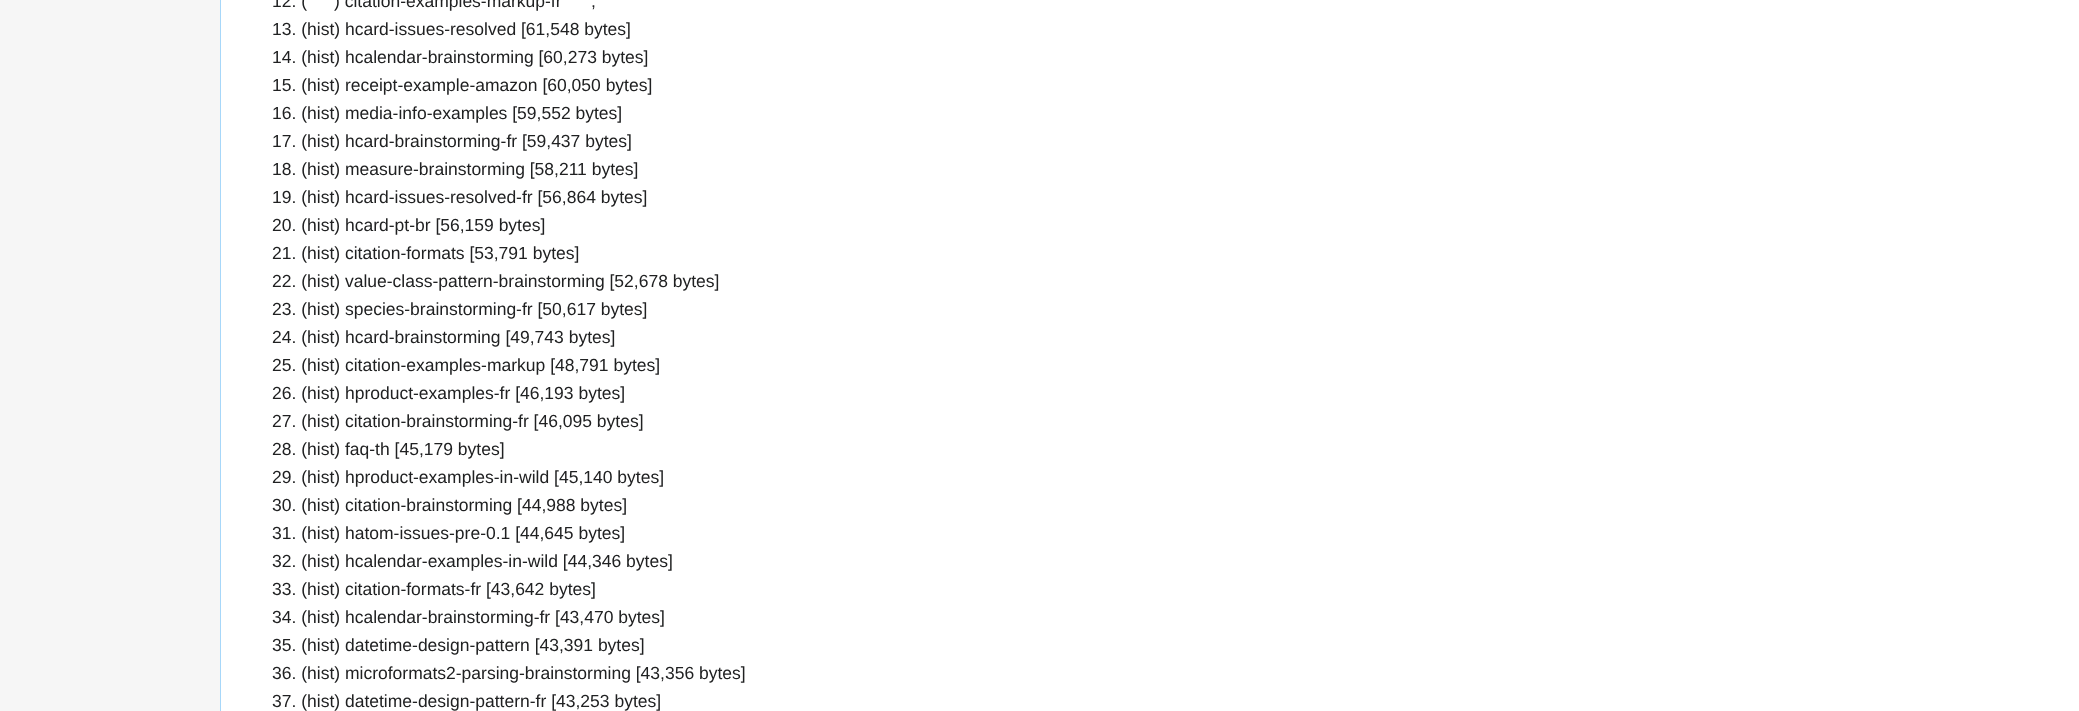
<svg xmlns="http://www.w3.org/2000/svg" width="2079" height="711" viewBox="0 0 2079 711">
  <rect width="100%" height="100%" fill="rgb(246,246,246)"/>
  <rect x="221" y="0" width="1858" height="711" fill="rgb(255,255,255)"/>
  <rect x="220" y="0" width="1" height="711" fill="rgb(167,215,249)"/>
  <g font-family="Liberation Sans" font-size="17.5" fill="rgb(32,33,34)">
    <text x="272" y="7">12. (</text>
    <text x="334" y="7">) citation-examples-markup-fr</text>
    <text x="591" y="7">,</text>
    <text>
      <tspan x="272" y="35">13. (hist) hcard-issues-resolved [61,548 bytes]</tspan>
      <tspan x="272" y="63">14. (hist) hcalendar-brainstorming [60,273 bytes]</tspan>
      <tspan x="272" y="91">15. (hist) receipt-example-amazon [60,050 bytes]</tspan>
      <tspan x="272" y="119">16. (hist) media-info-examples [59,552 bytes]</tspan>
      <tspan x="272" y="147">17. (hist) hcard-brainstorming-fr [59,437 bytes]</tspan>
      <tspan x="272" y="175">18. (hist) measure-brainstorming [58,211 bytes]</tspan>
      <tspan x="272" y="203">19. (hist) hcard-issues-resolved-fr [56,864 bytes]</tspan>
      <tspan x="272" y="231">20. (hist) hcard-pt-br [56,159 bytes]</tspan>
      <tspan x="272" y="259">21. (hist) citation-formats [53,791 bytes]</tspan>
      <tspan x="272" y="287">22. (hist) value-class-pattern-brainstorming [52,678 bytes]</tspan>
      <tspan x="272" y="315">23. (hist) species-brainstorming-fr [50,617 bytes]</tspan>
      <tspan x="272" y="343">24. (hist) hcard-brainstorming [49,743 bytes]</tspan>
      <tspan x="272" y="371">25. (hist) citation-examples-markup [48,791 bytes]</tspan>
      <tspan x="272" y="399">26. (hist) hproduct-examples-fr [46,193 bytes]</tspan>
      <tspan x="272" y="427">27. (hist) citation-brainstorming-fr [46,095 bytes]</tspan>
      <tspan x="272" y="455">28. (hist) faq-th [45,179 bytes]</tspan>
      <tspan x="272" y="483">29. (hist) hproduct-examples-in-wild [45,140 bytes]</tspan>
      <tspan x="272" y="511">30. (hist) citation-brainstorming [44,988 bytes]</tspan>
      <tspan x="272" y="539">31. (hist) hatom-issues-pre-0.1 [44,645 bytes]</tspan>
      <tspan x="272" y="567">32. (hist) hcalendar-examples-in-wild [44,346 bytes]</tspan>
      <tspan x="272" y="595">33. (hist) citation-formats-fr [43,642 bytes]</tspan>
      <tspan x="272" y="623">34. (hist) hcalendar-brainstorming-fr [43,470 bytes]</tspan>
      <tspan x="272" y="651">35. (hist) datetime-design-pattern [43,391 bytes]</tspan>
      <tspan x="272" y="679">36. (hist) microformats2-parsing-brainstorming [43,356 bytes]</tspan>
      <tspan x="272" y="707">37. (hist) datetime-design-pattern-fr [43,253 bytes]</tspan>
    </text>
  </g>
</svg>
